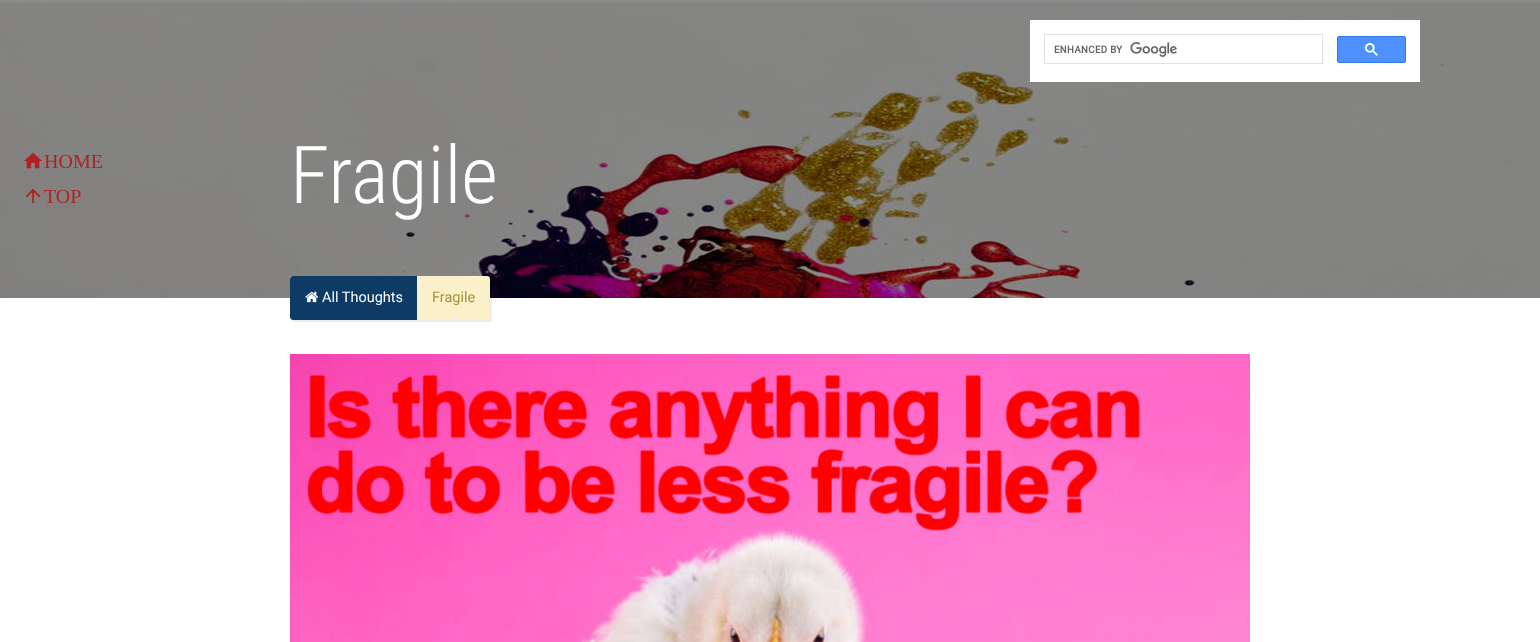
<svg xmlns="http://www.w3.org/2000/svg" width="1540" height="642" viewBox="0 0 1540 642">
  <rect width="100%" height="100%" fill="rgb(255,255,255)"/>
  <rect x="0" y="0" width="1540" height="298" fill="rgb(0,0,0)"/>
  <image x="0" y="0" width="1540" height="298" href="pic5.png"/>
  <rect x="1030" y="20" width="390" height="62" fill="rgb(255,255,255)"/>
  <rect x="1044.5" y="34.5" width="278" height="29" fill="none" stroke="rgb(223,225,229)"/>
  <image x="1054" y="42" width="123" height="15" href="pic1.png"/>
  <rect x="1337.5" y="36.5" width="68" height="26" rx="1.5" fill="rgb(77,144,254)" stroke="rgb(48,121,237)"/>
  <image x="1365" y="43" width="13" height="13" href="pic2.png"/>
  <image x="24" y="153" width="18" height="16" href="pic3.png"/>
  <text x="44" y="168" font-family="Liberation Serif" font-size="20" fill="rgb(178,34,34)">HOME</text>
  <image x="25" y="188" width="16" height="16" href="pic4.png"/>
  <text x="44" y="203" font-family="Liberation Serif" font-size="20" fill="rgb(178,34,34)">TOP</text>
  <text x="290" y="203" font-family="Roboto Condensed" font-size="80" font-weight="300" fill="rgb(255,255,255)">Fragile</text>
  <rect x="292" y="278" width="200" height="44" rx="3" fill="rgba(0,0,0,0.07)" filter="blur(0.5px)"/>
  <rect x="290" y="276" width="200" height="44" rx="3" fill="rgb(250,240,202)"/>
  <path d="M293 276H417V320H293C291.5 320 290 318.5 290 317V279C290 277.5 291.5 276 293 276Z" fill="rgb(13,59,102)"/>
  <image x="305" y="291" width="14" height="12" href="pic6.png"/>
  <text x="322" y="302" font-family="Roboto" font-size="14.5" fill="rgb(255,255,255)">All Thoughts</text>
  <text x="432" y="302" font-family="Roboto" font-size="14.5" fill="rgb(168,146,56)">Fragile</text>
  <image x="290" y="354" width="960" height="288" href="pic7.png"/>
</svg>
